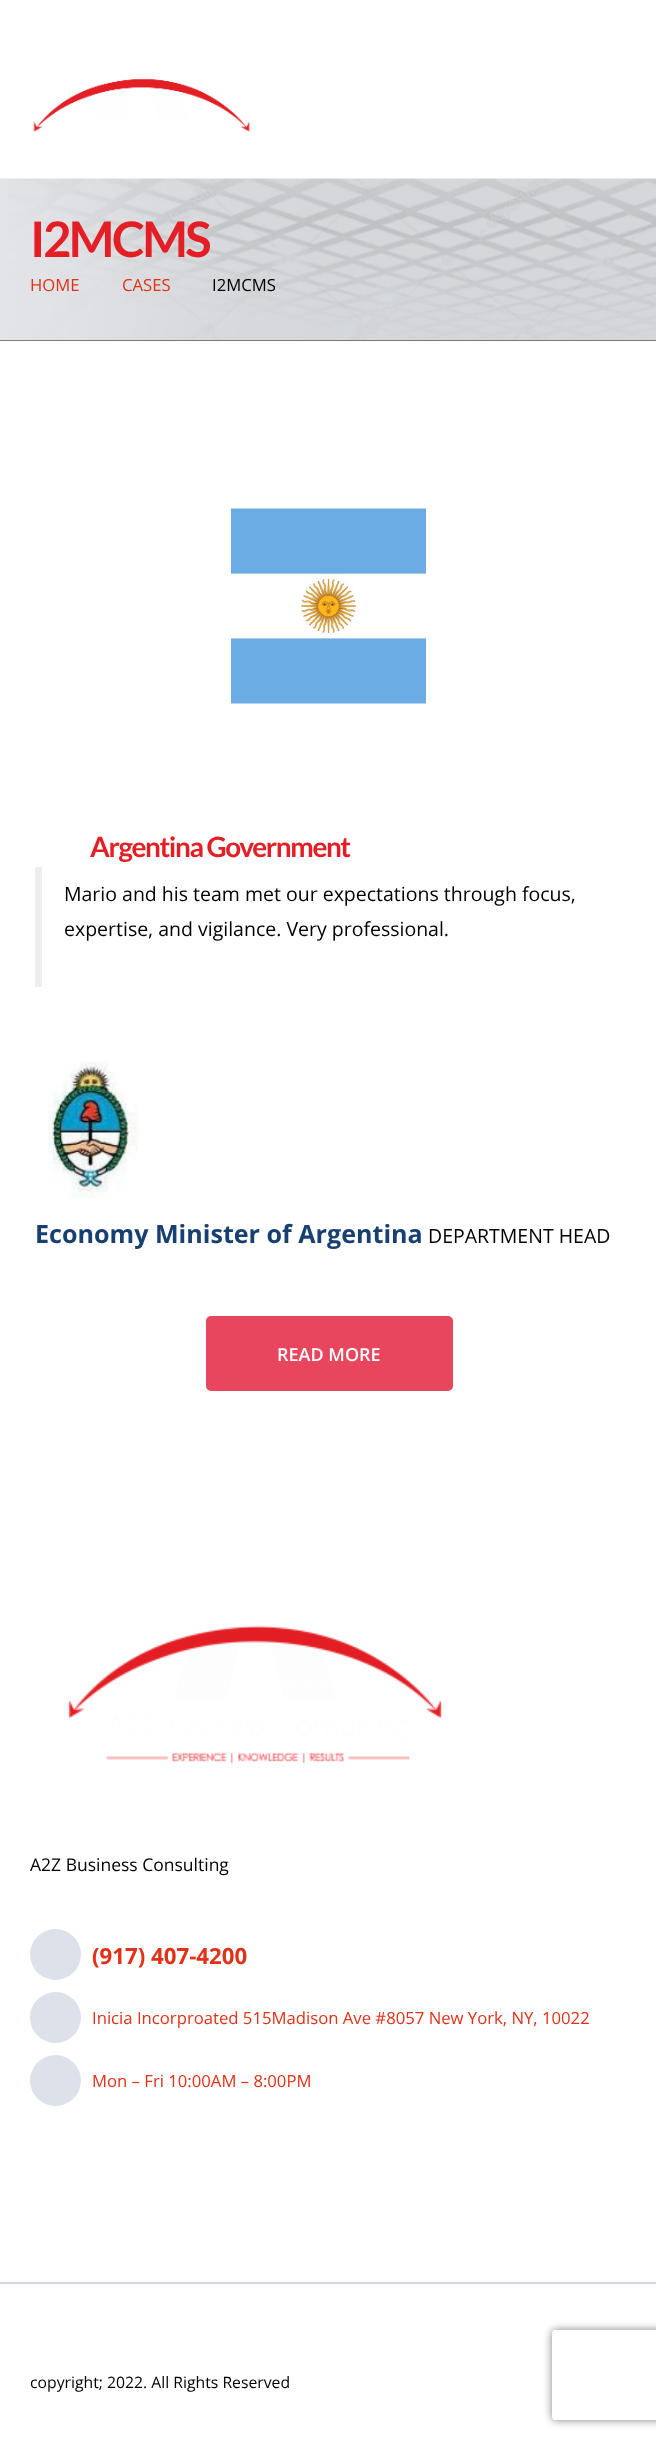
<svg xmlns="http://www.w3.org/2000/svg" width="656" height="2440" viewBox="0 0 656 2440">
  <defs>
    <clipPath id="clip1"><path d="M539 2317H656V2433H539ZM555 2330H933C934.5 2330 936 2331.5 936 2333V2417C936 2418.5 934.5 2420 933 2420H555C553.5 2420 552 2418.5 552 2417V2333C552 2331.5 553.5 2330 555 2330Z" clip-rule="evenodd"/></clipPath>
  </defs>
  <rect width="100%" height="100%" fill="rgb(255,255,255)"/>
  <image x="33" y="78" width="217" height="54" href="pic1.png"/>
  <rect x="0" y="340" width="656" height="1" fill="rgb(23,23,23)"/>
  <image x="0" y="178" width="656" height="163" href="pic2.png"/>
  <text x="30" y="257" font-family="Lato" font-size="49" font-weight="bold" letter-spacing="-2.5" fill="rgb(227,30,36)">I2MCMS</text>
  <g font-family="Open Sans" font-size="16.7" fill="rgb(226,49,22)">
    <text x="30" y="291">HOME</text>
    <text x="122" y="291">CASES</text>
  </g>
  <text x="212" y="291" font-family="Open Sans" font-size="16.7" fill="rgb(0,0,0)">I2MCMS</text>
  <text x="90" y="857" font-family="Lato" font-size="27.9" font-weight="bold" letter-spacing="-1.4" fill="rgb(227,30,36)">Argentina Government</text>
  <rect x="35" y="867" width="7" height="120" fill="rgb(238,238,238)"/>
  <g font-family="Open Sans" font-size="19.5" fill="rgb(0,0,0)">
    <text>
      <tspan x="64" y="901">Mario and his team met our expectations through focus,</tspan>
      <tspan x="64" y="936">expertise, and vigilance. Very professional.</tspan>
    </text>
  </g>
  <image x="48" y="1061" width="91" height="138" href="pic3.png"/>
  <text x="35" y="1243" font-family="Open Sans" font-size="25.1" font-weight="bold" fill="rgb(24,63,114)">Economy Minister of Argentina</text>
  <text x="428" y="1243" font-family="Open Sans" font-size="19.5" fill="rgb(0,0,0)">DEPARTMENT HEAD</text>
  <image x="231" y="508" width="195" height="196" href="pic4.png"/>
  <rect x="206" y="1316" width="247" height="75" rx="5" fill="rgb(232,70,95)"/>
  <text x="277" y="1361" font-family="Open Sans" font-size="18" font-weight="600" fill="rgb(255,255,255)">READ MORE</text>
  <rect x="0" y="2282" width="656" height="2" fill="rgb(206,214,225)"/>
  <image x="68" y="1625" width="374" height="139" href="pic5.png"/>
  <text x="30" y="1871" font-family="Open Sans" font-size="17.5" fill="rgb(0,0,0)">A2Z Business Consulting</text>
  <circle cx="55.5" cy="1954.5" r="25.5" fill="rgb(221,226,234)"/>
  <text x="92" y="1964" font-family="Open Sans" font-size="22.25" font-weight="bold" fill="rgb(226,49,22)">(917) 407-4200</text>
  <circle cx="55.5" cy="2017.5" r="25.5" fill="rgb(221,226,234)"/>
  <text x="92" y="2024" font-family="Open Sans" font-size="16.7" fill="rgb(226,49,22)">Inicia Incorproated 515Madison Ave #8057 New York, NY, 10022</text>
  <circle cx="55.5" cy="2080.5" r="25.5" fill="rgb(221,226,234)"/>
  <text x="92" y="2087" font-family="Open Sans" font-size="16.7" fill="rgb(226,49,22)">Mon – Fri 10:00AM – 8:00PM</text>
  <text x="30" y="2388" font-family="Open Sans" font-size="15.75" fill="rgb(0,0,0)">copyright; 2022. All Rights Reserved</text>
  <g clip-path="url(#clip1)">
    <rect x="552" y="2330" width="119" height="90" rx="3" fill="rgb(128,128,128)" filter="blur(4px)"/>
  </g>
</svg>
